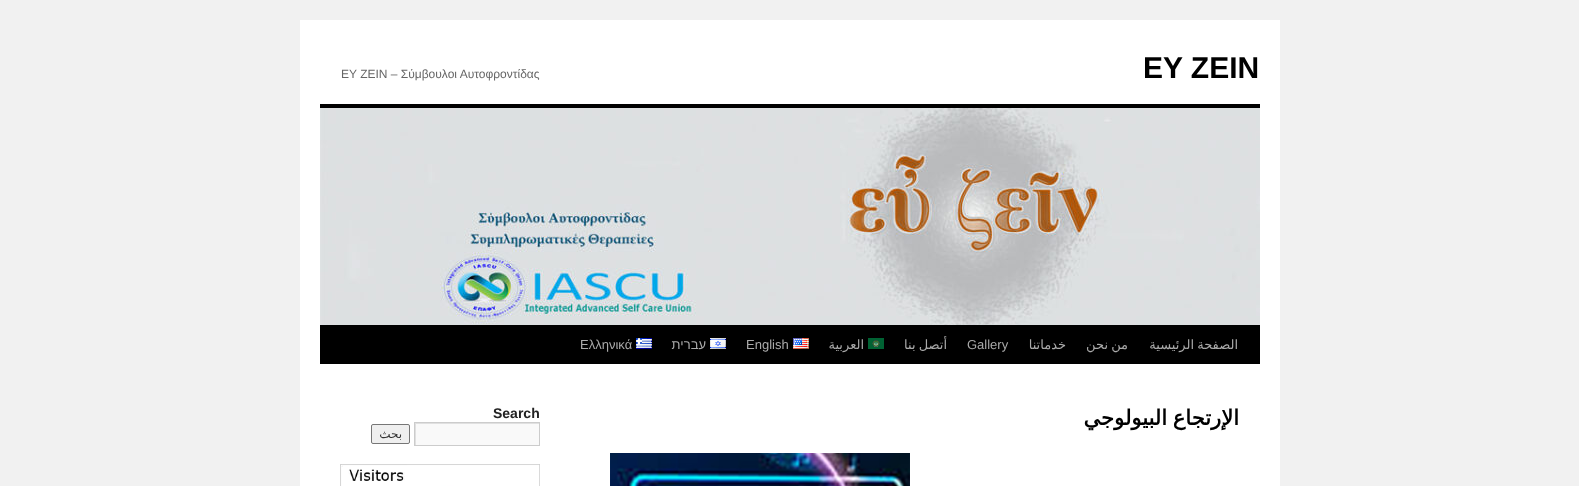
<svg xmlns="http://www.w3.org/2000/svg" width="1579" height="486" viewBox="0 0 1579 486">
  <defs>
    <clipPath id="clip1"><rect x="415" y="423" width="124" height="22"/></clipPath>
  </defs>
  <rect width="100%" height="100%" fill="rgb(241,241,241)"/>
  <rect x="300" y="20" width="980" height="466" fill="rgb(255,255,255)"/>
  <text x="1143" y="78" font-family="Liberation Sans" font-size="30" font-weight="bold" fill="rgb(0,0,0)">EY ZEIN</text>
  <text x="341" y="78" font-family="Liberation Sans" font-size="12" fill="rgb(102,102,102)">ΕΥ ΖΕΙΝ – Σύμβουλοι Αυτοφροντίδας</text>
  <rect x="320" y="104" width="940" height="4" fill="rgb(0,0,0)"/>
  <rect x="320" y="325" width="940" height="39" fill="rgb(0,0,0)"/>
  <image x="320" y="108" width="940" height="217" href="pic1.png"/>
  <g font-family="DejaVu Sans" font-size="13" direction="rtl" fill="rgb(170,170,170)">
    <text x="1238" y="349" word-spacing="-1">الصفحة الرئيسية</text>
    <text x="1128" y="349" word-spacing="-1">من نحن</text>
    <text x="1066" y="349">خدماتنا</text>
  </g>
  <text x="967" y="349" font-family="Liberation Sans" font-size="13" fill="rgb(170,170,170)">Gallery</text>
  <text x="947" y="349" word-spacing="-1" font-family="DejaVu Sans" font-size="13" direction="rtl" fill="rgb(170,170,170)">أتصل بنا</text>
  <image x="868" y="338" width="16" height="11" href="pic2.png"/>
  <text x="864" y="349" font-family="DejaVu Sans" font-size="13" direction="rtl" fill="rgb(170,170,170)">العربية</text>
  <image x="793" y="338" width="16" height="11" href="pic3.png"/>
  <text x="746" y="349" font-family="Liberation Sans" font-size="13" fill="rgb(170,170,170)">English</text>
  <image x="710" y="338" width="16" height="11" href="pic4.png"/>
  <text x="706" y="349" font-family="Liberation Sans" font-size="13" direction="rtl" fill="rgb(170,170,170)">עברית</text>
  <image x="636" y="338" width="16" height="11" href="pic5.png"/>
  <text x="580" y="349" font-family="Liberation Sans" font-size="13" fill="rgb(170,170,170)">Ελληνικά</text>
  <text x="1239" y="425" word-spacing="-1" font-family="DejaVu Sans" font-size="21" font-weight="bold" direction="rtl" fill="rgb(0,0,0)">الإرتجاع البيولوجي</text>
  <image x="610" y="453" width="300" height="33" href="pic6.png"/>
  <text x="493" y="418" font-family="Liberation Sans" font-size="14" font-weight="bold" fill="rgb(34,34,34)">Search</text>
  <rect x="416" y="424" width="123" height="21" fill="rgb(249,249,249)"/>
  <g clip-path="url(#clip1)">
    <path d="M316 324H638V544H316ZM416 424H540V446H416Z" fill="rgb(224,224,224)" fill-rule="evenodd"/>
  </g>
  <rect x="414.5" y="422.5" width="125" height="23" fill="none" stroke="rgb(204,204,204)"/>
  <rect x="371.5" y="424.5" width="38" height="19" rx="1.5" fill="rgb(239,239,239)" stroke="rgb(118,118,118)"/>
  <text x="402" y="438" font-family="DejaVu Sans" font-size="12" direction="rtl" fill="rgb(51,51,51)">بحث</text>
  <image x="340" y="464" width="200" height="22" href="pic7.png"/>
</svg>
